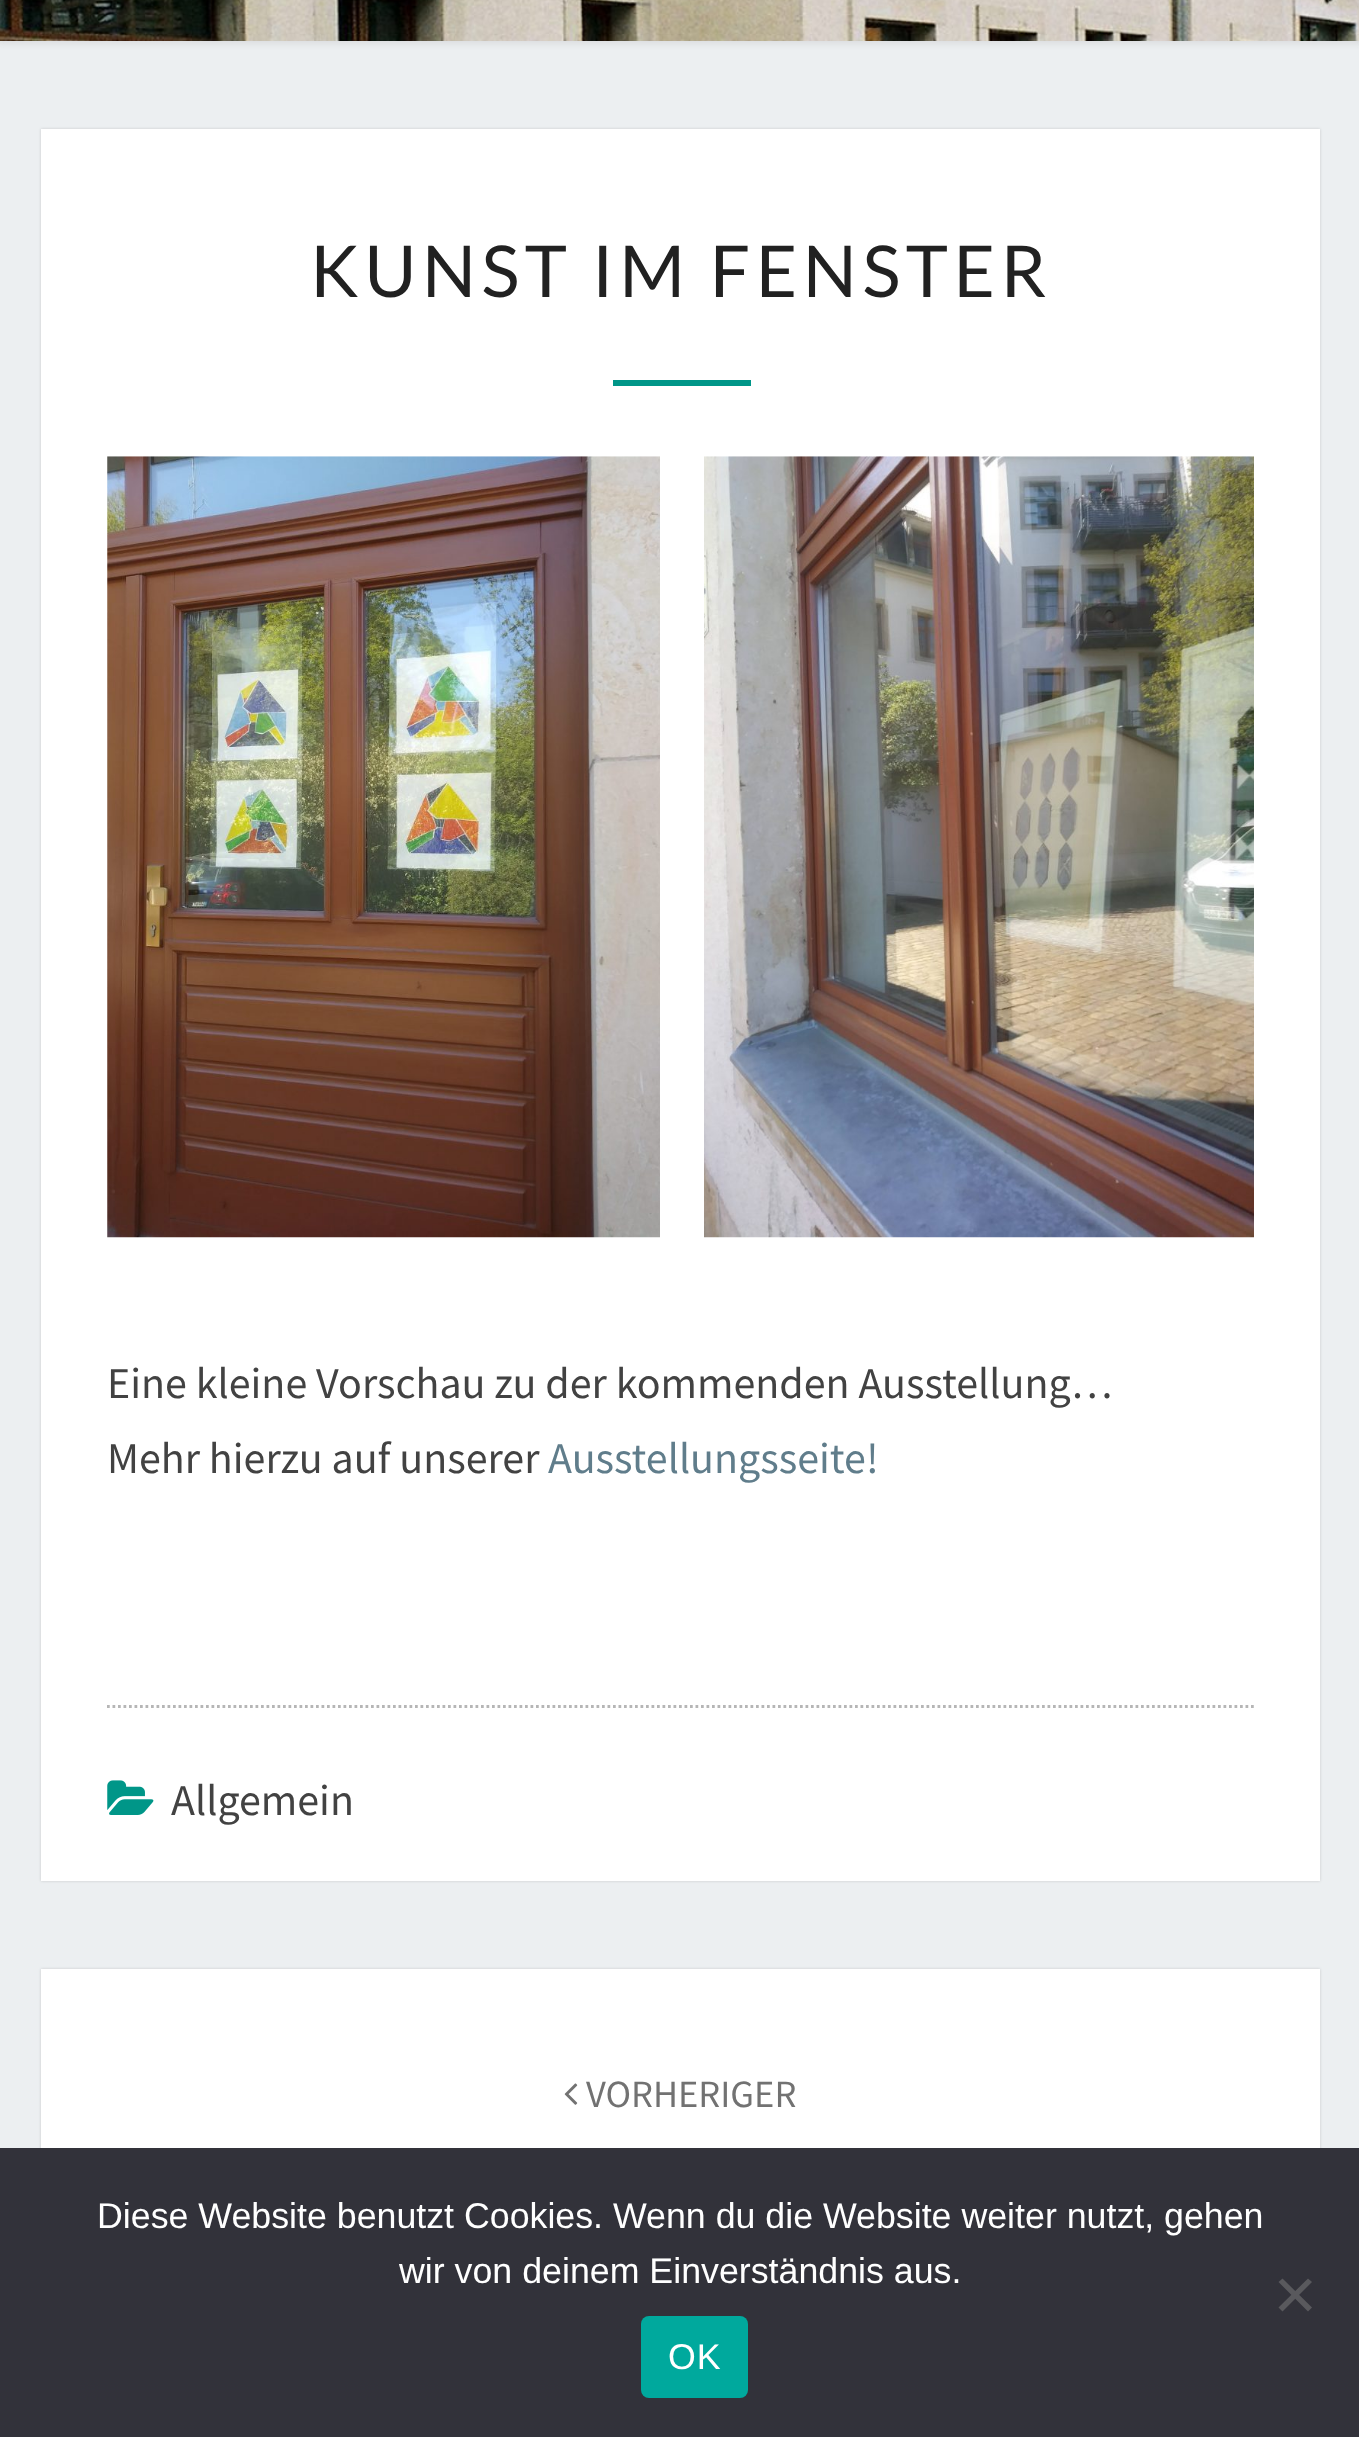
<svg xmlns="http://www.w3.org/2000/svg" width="1359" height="2437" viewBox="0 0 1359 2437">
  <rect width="100%" height="100%" fill="rgb(236,239,241)"/>
  <rect x="-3" y="-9" width="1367" height="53" fill="rgba(182,182,182,0.3)" filter="blur(3px)"/>
  <image x="0" y="0" width="1359" height="41" href="pic1.png"/>
  <rect x="41" y="129" width="1279" height="1752" fill="rgba(0,0,0,0.15)" filter="blur(1.5px)"/>
  <rect x="41" y="129" width="1279" height="1752" fill="rgb(255,255,255)"/>
  <text x="310" y="297" font-family="Lato" font-size="71.5" letter-spacing="5.5" fill="rgb(33,33,33)">KUNST IM FENSTER</text>
  <rect x="613" y="380" width="138" height="6" fill="rgb(0,150,136)"/>
  <image x="107" y="456" width="553" height="782" href="pic2.png"/>
  <image x="704" y="456" width="550" height="782" href="pic3.png"/>
  <g font-family="Source Sans Pro" font-size="44" fill="rgb(66,66,66)">
    <text>
      <tspan x="107" y="1398">Eine kleine Vorschau zu der kommenden Ausstellung…</tspan>
      <tspan x="107" y="1473">Mehr hierzu auf unserer</tspan>
    </text>
  </g>
  <text x="548" y="1473" font-family="Source Sans Pro" font-size="44" fill="rgb(96,125,139)">Ausstellungsseite!</text>
  <path d="M107 1706.5H1254" fill="none" stroke="rgb(182,182,182)" stroke-width="2.8" stroke-dasharray="2.75 2.75"/>
  <image x="107" y="1780" width="47" height="35" href="pic4.png"/>
  <text x="171" y="1815" font-family="Source Sans Pro" font-size="44" fill="rgb(66,66,66)">Allgemein</text>
  <rect x="41" y="1969" width="1279" height="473" fill="rgba(0,0,0,0.15)" filter="blur(1.5px)"/>
  <rect x="41" y="1969" width="1279" height="179" fill="rgb(255,255,255)"/>
  <image x="564" y="2083" width="14" height="22" href="pic5.png"/>
  <text x="586" y="2107" font-family="Source Sans Pro" font-size="38.5" fill="rgb(114,114,114)">VORHERIGER</text>
  <rect x="0" y="2148" width="1359" height="289" fill="rgb(50,50,58)"/>
  <g font-family="Liberation Sans" font-size="35.75" fill="rgb(255,255,255)">
    <text x="97" y="2228">Diese Website benutzt Cookies. Wenn du die Website weiter nutzt, gehen</text>
    <text x="399" y="2283">wir von deinem Einverständnis aus.</text>
  </g>
  <path d="M1308 2278.5L1312 2282L1282.5 2311.5L1278.5 2307.5Z" fill="rgb(89,89,93)"/>
  <path d="M1278.5 2282L1282.5 2278.5L1312 2307.5L1308 2311.5Z" fill="rgb(89,89,93)"/>
  <rect x="641" y="2316" width="107" height="82" rx="8" fill="rgb(0,169,157)"/>
  <text x="668" y="2369" font-family="Liberation Sans" font-size="35.75" letter-spacing="1" fill="rgb(255,255,255)">OK</text>
</svg>
